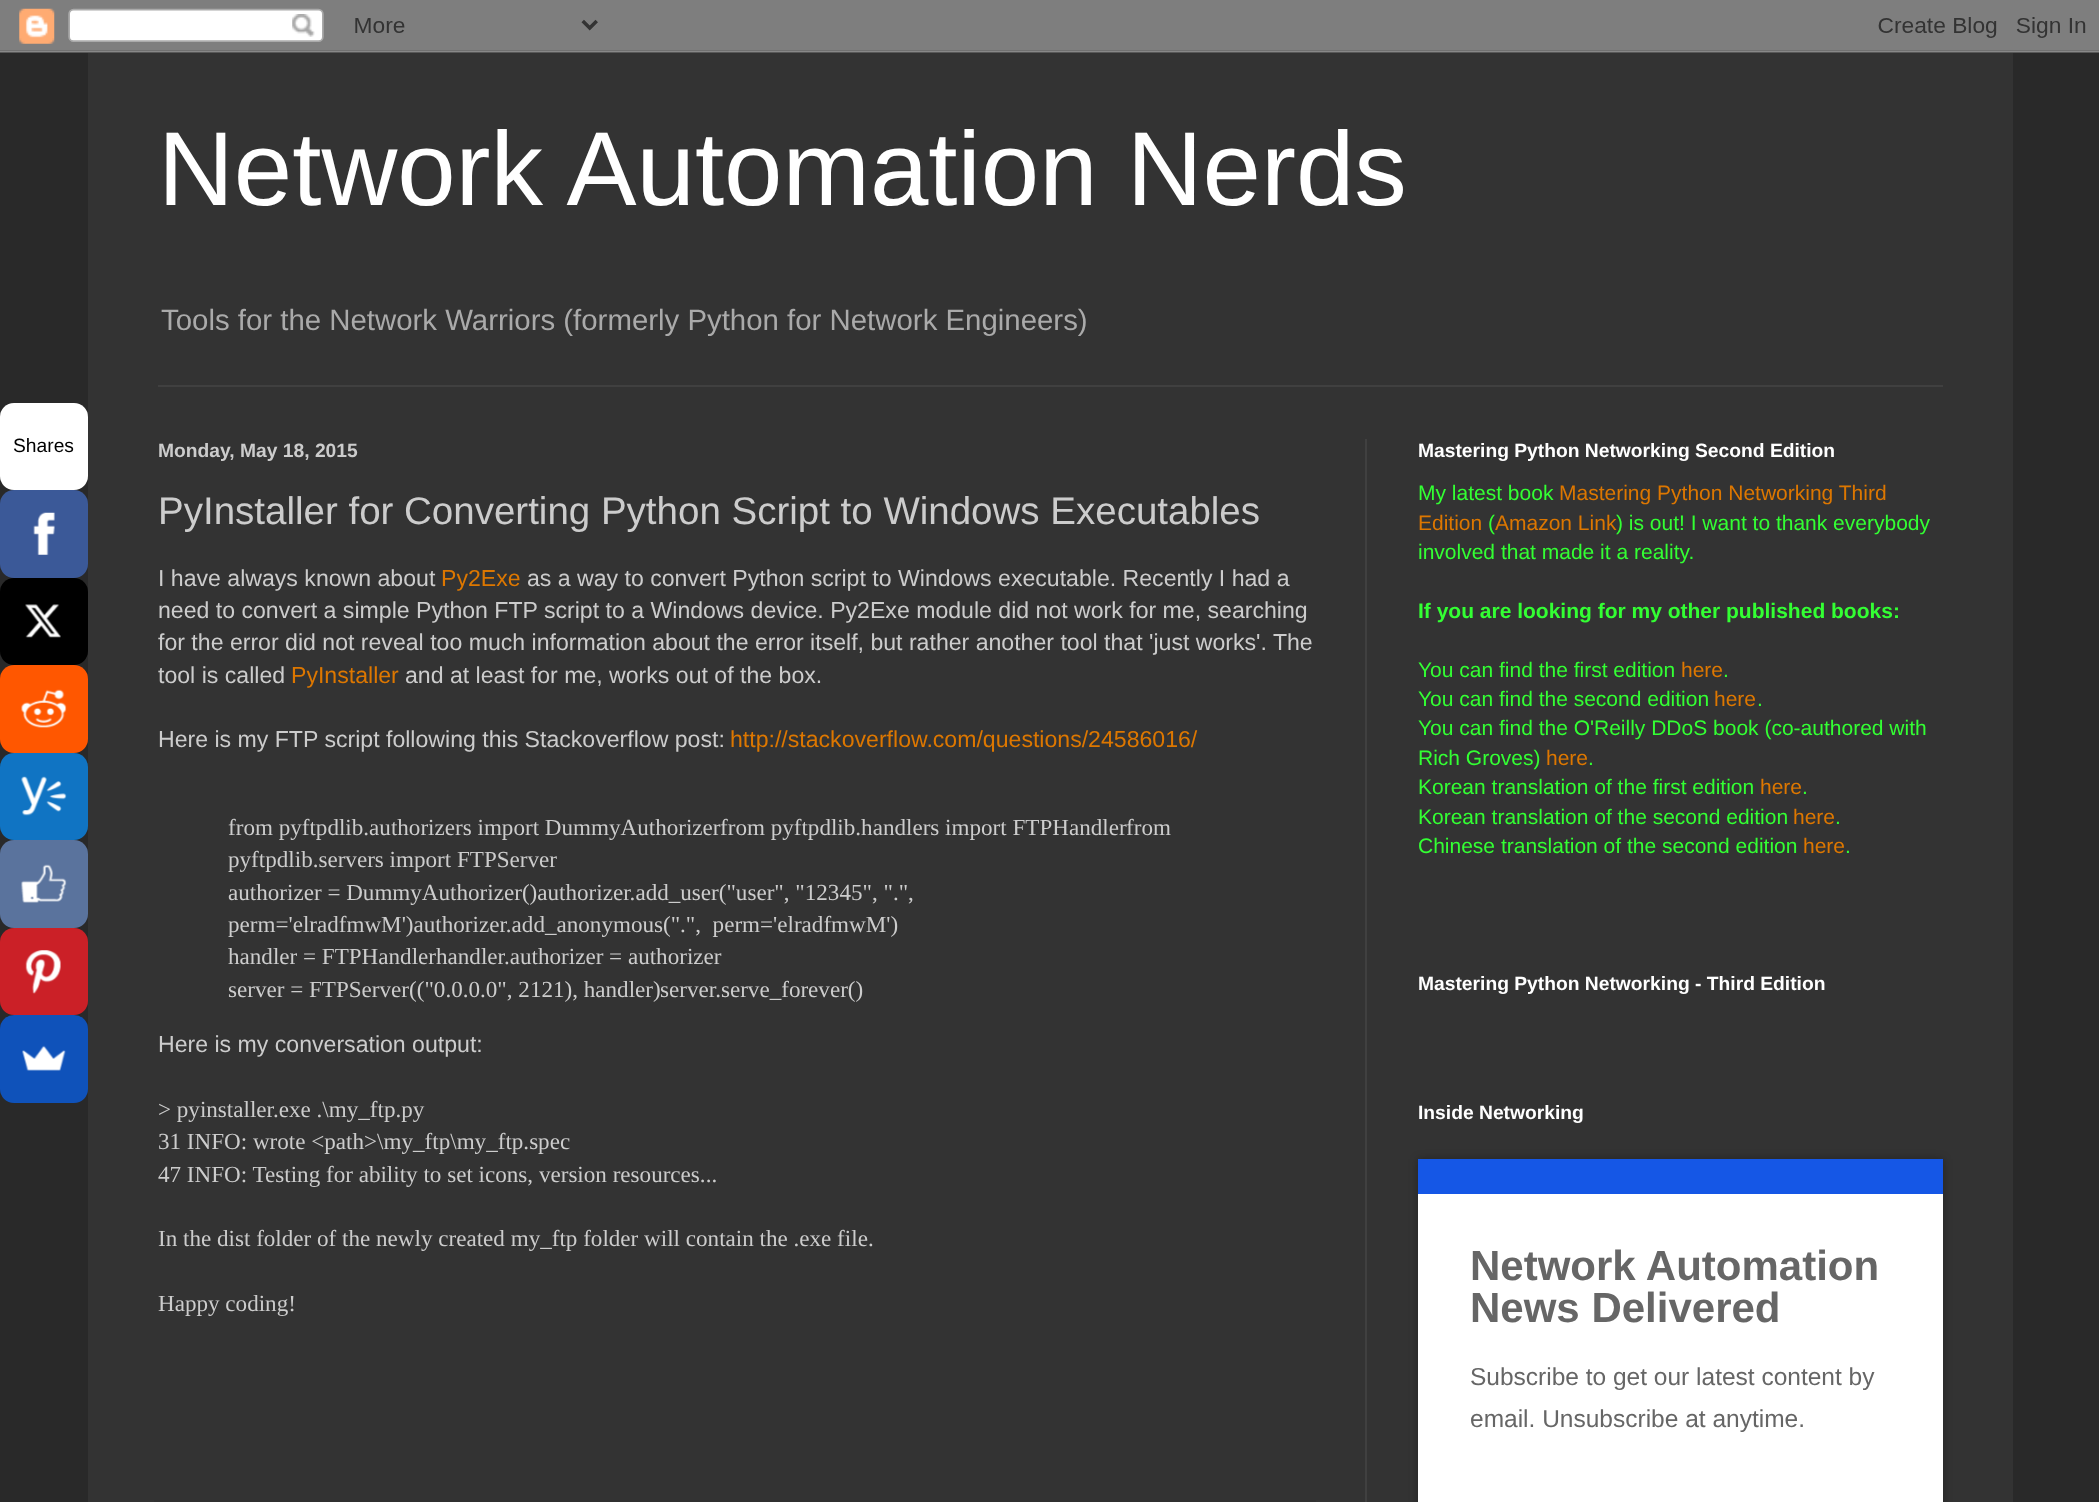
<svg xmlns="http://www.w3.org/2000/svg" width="2099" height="1502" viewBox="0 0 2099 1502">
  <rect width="100%" height="100%" fill="rgb(41,41,41)"/>
  <image x="0" y="0" width="2099" height="53" href="pic1.png"/>
  <rect x="0" y="403" width="88" height="87" rx="14" fill="rgb(255,255,255)"/>
  <text x="13" y="452" font-family="Liberation Sans" font-size="19.25" fill="rgb(0,0,0)">Shares</text>
  <rect x="0" y="490" width="88" height="88" rx="14" fill="rgb(59,89,152)"/>
  <image x="33" y="512" width="22" height="43" href="pic2.png"/>
  <rect x="0" y="578" width="88" height="87" rx="14" fill="rgb(0,0,0)"/>
  <image x="25" y="604" width="36" height="34" href="pic3.png"/>
  <rect x="0" y="665" width="88" height="88" rx="14" fill="rgb(255,87,0)"/>
  <image x="21" y="689" width="46" height="39" href="pic4.png"/>
  <rect x="0" y="753" width="88" height="87" rx="14" fill="rgb(16,116,195)"/>
  <image x="21" y="776" width="46" height="40" href="pic5.png"/>
  <rect x="0" y="840" width="88" height="88" rx="14" fill="rgb(90,115,157)"/>
  <image x="21" y="864" width="46" height="39" href="pic6.png"/>
  <rect x="0" y="928" width="88" height="87" rx="14" fill="rgb(203,32,39)"/>
  <image x="25" y="950" width="36" height="44" href="pic7.png"/>
  <rect x="0" y="1015" width="88" height="88" rx="14" fill="rgb(15,82,186)"/>
  <image x="22" y="1045" width="44" height="26" href="pic8.png"/>
  <rect x="88" y="53" width="1925" height="1449" fill="rgb(51,51,51)"/>
  <text x="158" y="205" font-family="Liberation Sans" font-size="105" fill="rgb(255,255,255)">Network Automation Nerds</text>
  <text x="161" y="330" font-family="Liberation Sans" font-size="29.4" fill="rgb(170,170,170)">Tools for the Network Warriors (formerly Python for Network Engineers)</text>
  <rect x="158" y="385" width="1785" height="2" fill="rgb(64,64,64)"/>
  <rect x="1365" y="439" width="2" height="1063" fill="rgb(64,64,64)"/>
  <text x="158" y="457" font-family="Liberation Sans" font-size="19.25" font-weight="bold" fill="rgb(204,204,204)">Monday, May 18, 2015</text>
  <text x="158" y="524" font-family="Liberation Sans" font-size="38.5" fill="rgb(204,204,204)">PyInstaller for Converting Python Script to Windows Executables</text>
  <text x="158" y="586" font-family="Liberation Sans" font-size="23.1" fill="rgb(204,204,204)">I have always known about</text>
  <text x="441" y="586" font-family="Liberation Sans" font-size="23.1" fill="rgb(221,119,0)">Py2Exe</text>
  <g font-family="Liberation Sans" font-size="23.1" fill="rgb(204,204,204)">
    <text x="527" y="586">as a way to convert Python script to Windows executable. Recently I had a</text>
    <text>
      <tspan x="158" y="618">need to convert a simple Python FTP script to a Windows device. Py2Exe module did not work for me, searching</tspan>
      <tspan x="158" y="650">for the error did not reveal too much information about the error itself, but rather another tool that 'just works'. The</tspan>
      <tspan x="158" y="683">tool is called</tspan>
    </text>
  </g>
  <text x="291" y="683" font-family="Liberation Sans" font-size="23.1" fill="rgb(221,119,0)">PyInstaller</text>
  <g font-family="Liberation Sans" font-size="23.1" fill="rgb(204,204,204)">
    <text x="405" y="683">and at least for me, works out of the box.</text>
    <text x="158" y="747">Here is my FTP script following this Stackoverflow post:</text>
  </g>
  <text x="730" y="747" font-family="Liberation Sans" font-size="23.1" fill="rgb(221,119,0)">http://stackoverflow.com/questions/24586016/</text>
  <g font-family="Liberation Serif" font-size="23.1" fill="rgb(204,204,204)">
    <text x="228" y="835">from pyftpdlib.authorizers import DummyAuthorizer</text>
    <text x="720" y="835">from pyftpdlib.handlers import FTPHandler</text>
    <text x="1126" y="835">from</text>
    <text xml:space="preserve"><tspan x="228" y="867">pyftpdlib.servers import FTPServer</tspan><tspan x="228" y="900">authorizer = DummyAuthorizer()authorizer.add_user("user", "12345", ".",</tspan><tspan x="228" y="932">perm='elradfmwM')authorizer.add_anonymous(".",  perm='elradfmwM')</tspan><tspan x="228" y="964">handler = FTPHandlerhandler.authorizer = authorizer</tspan><tspan x="228" y="997">server = FTPServer(("0.0.0.0", 2121), handler)</tspan></text>
    <text x="660" y="997">server.serve_forever()</text>
  </g>
  <text x="158" y="1052" font-family="Liberation Sans" font-size="23.1" fill="rgb(204,204,204)">Here is my conversation output:</text>
  <g font-family="Liberation Serif" font-size="23.1" fill="rgb(204,204,204)">
    <text>
      <tspan x="158" y="1117">&gt; pyinstaller.exe .\my_ftp.py</tspan>
      <tspan x="158" y="1149">31 INFO: wrote &lt;path&gt;\my_ftp\my_ftp.spec</tspan>
      <tspan x="158" y="1182">47 INFO: Testing for ability to set icons, version resources...</tspan>
    </text>
    <text x="158" y="1246">In the dist folder of the newly created my_ftp folder will contain the .exe file.</text>
    <text x="158" y="1311">Happy coding!</text>
  </g>
  <rect x="154" y="1500" width="1162" height="2" fill="rgb(48,48,48)"/>
  <text x="1418" y="457" font-family="Liberation Sans" font-size="19.25" font-weight="bold" fill="rgb(255,255,255)">Mastering Python Networking Second Edition</text>
  <text x="1418" y="500" font-family="Liberation Sans" font-size="21" fill="rgb(51,255,51)">My latest book</text>
  <g font-family="Liberation Sans" font-size="21" fill="rgb(221,119,0)">
    <text x="1559" y="500">Mastering Python Networking Third</text>
    <text x="1418" y="530">Edition</text>
  </g>
  <text x="1488" y="530" font-family="Liberation Sans" font-size="21" fill="rgb(51,255,51)">(</text>
  <text x="1495" y="530" font-family="Liberation Sans" font-size="21" fill="rgb(221,119,0)">Amazon Link</text>
  <g font-family="Liberation Sans" font-size="21" fill="rgb(51,255,51)">
    <text x="1616" y="530">) is out! I want to thank everybody</text>
    <text x="1418" y="559">involved that made it a reality.</text>
  </g>
  <text x="1418" y="618" font-family="Liberation Sans" font-size="21" font-weight="bold" fill="rgb(51,255,51)">If you are looking for my other published books:</text>
  <text x="1418" y="677" font-family="Liberation Sans" font-size="21" fill="rgb(51,255,51)">You can find the first edition</text>
  <text x="1681" y="677" font-family="Liberation Sans" font-size="21" fill="rgb(221,119,0)">here</text>
  <g font-family="Liberation Sans" font-size="21" fill="rgb(51,255,51)">
    <text x="1723" y="677">.</text>
    <text x="1418" y="706">You can find the second edition</text>
  </g>
  <text x="1714" y="706" font-family="Liberation Sans" font-size="21" fill="rgb(221,119,0)">here</text>
  <g font-family="Liberation Sans" font-size="21" fill="rgb(51,255,51)">
    <text x="1757" y="706">.</text>
    <text>
      <tspan x="1418" y="735">You can find the O'Reilly DDoS book (co-authored with</tspan>
      <tspan x="1418" y="765">Rich Groves)</tspan>
    </text>
  </g>
  <text x="1546" y="765" font-family="Liberation Sans" font-size="21" fill="rgb(221,119,0)">here</text>
  <g font-family="Liberation Sans" font-size="21" fill="rgb(51,255,51)">
    <text x="1588" y="765">.</text>
    <text x="1418" y="794">Korean translation of the first edition</text>
  </g>
  <text x="1760" y="794" font-family="Liberation Sans" font-size="21" fill="rgb(221,119,0)">here</text>
  <g font-family="Liberation Sans" font-size="21" fill="rgb(51,255,51)">
    <text x="1802" y="794">.</text>
    <text x="1418" y="824">Korean translation of the second edition</text>
  </g>
  <text x="1793" y="824" font-family="Liberation Sans" font-size="21" fill="rgb(221,119,0)">here</text>
  <g font-family="Liberation Sans" font-size="21" fill="rgb(51,255,51)">
    <text x="1835" y="824">.</text>
    <text x="1418" y="853">Chinese translation of the second edition</text>
  </g>
  <text x="1803" y="853" font-family="Liberation Sans" font-size="21" fill="rgb(221,119,0)">here</text>
  <text x="1845" y="853" font-family="Liberation Sans" font-size="21" fill="rgb(51,255,51)">.</text>
  <g font-family="Liberation Sans" font-size="19.25" font-weight="bold" fill="rgb(255,255,255)">
    <text x="1418" y="990">Mastering Python Networking - Third Edition</text>
    <text x="1418" y="1119">Inside Networking</text>
  </g>
  <rect x="1418" y="1159" width="525" height="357" fill="rgba(0,0,0,0.3)" filter="blur(4.5px)"/>
  <rect x="1418" y="1194" width="525" height="308" fill="rgb(255,255,255)"/>
  <rect x="1418" y="1159" width="525" height="35" fill="rgb(21,87,230)"/>
  <g font-family="Liberation Sans" font-size="42" font-weight="bold" fill="rgb(102,102,102)">
    <text>
      <tspan x="1470" y="1280">Network Automation</tspan>
      <tspan x="1470" y="1322">News Delivered</tspan>
    </text>
  </g>
  <g font-family="Liberation Sans" font-size="24.5" fill="rgb(102,102,102)">
    <text>
      <tspan x="1470" y="1385">Subscribe to get our latest content by</tspan>
      <tspan x="1470" y="1427">email. Unsubscribe at anytime.</tspan>
    </text>
  </g>
</svg>
